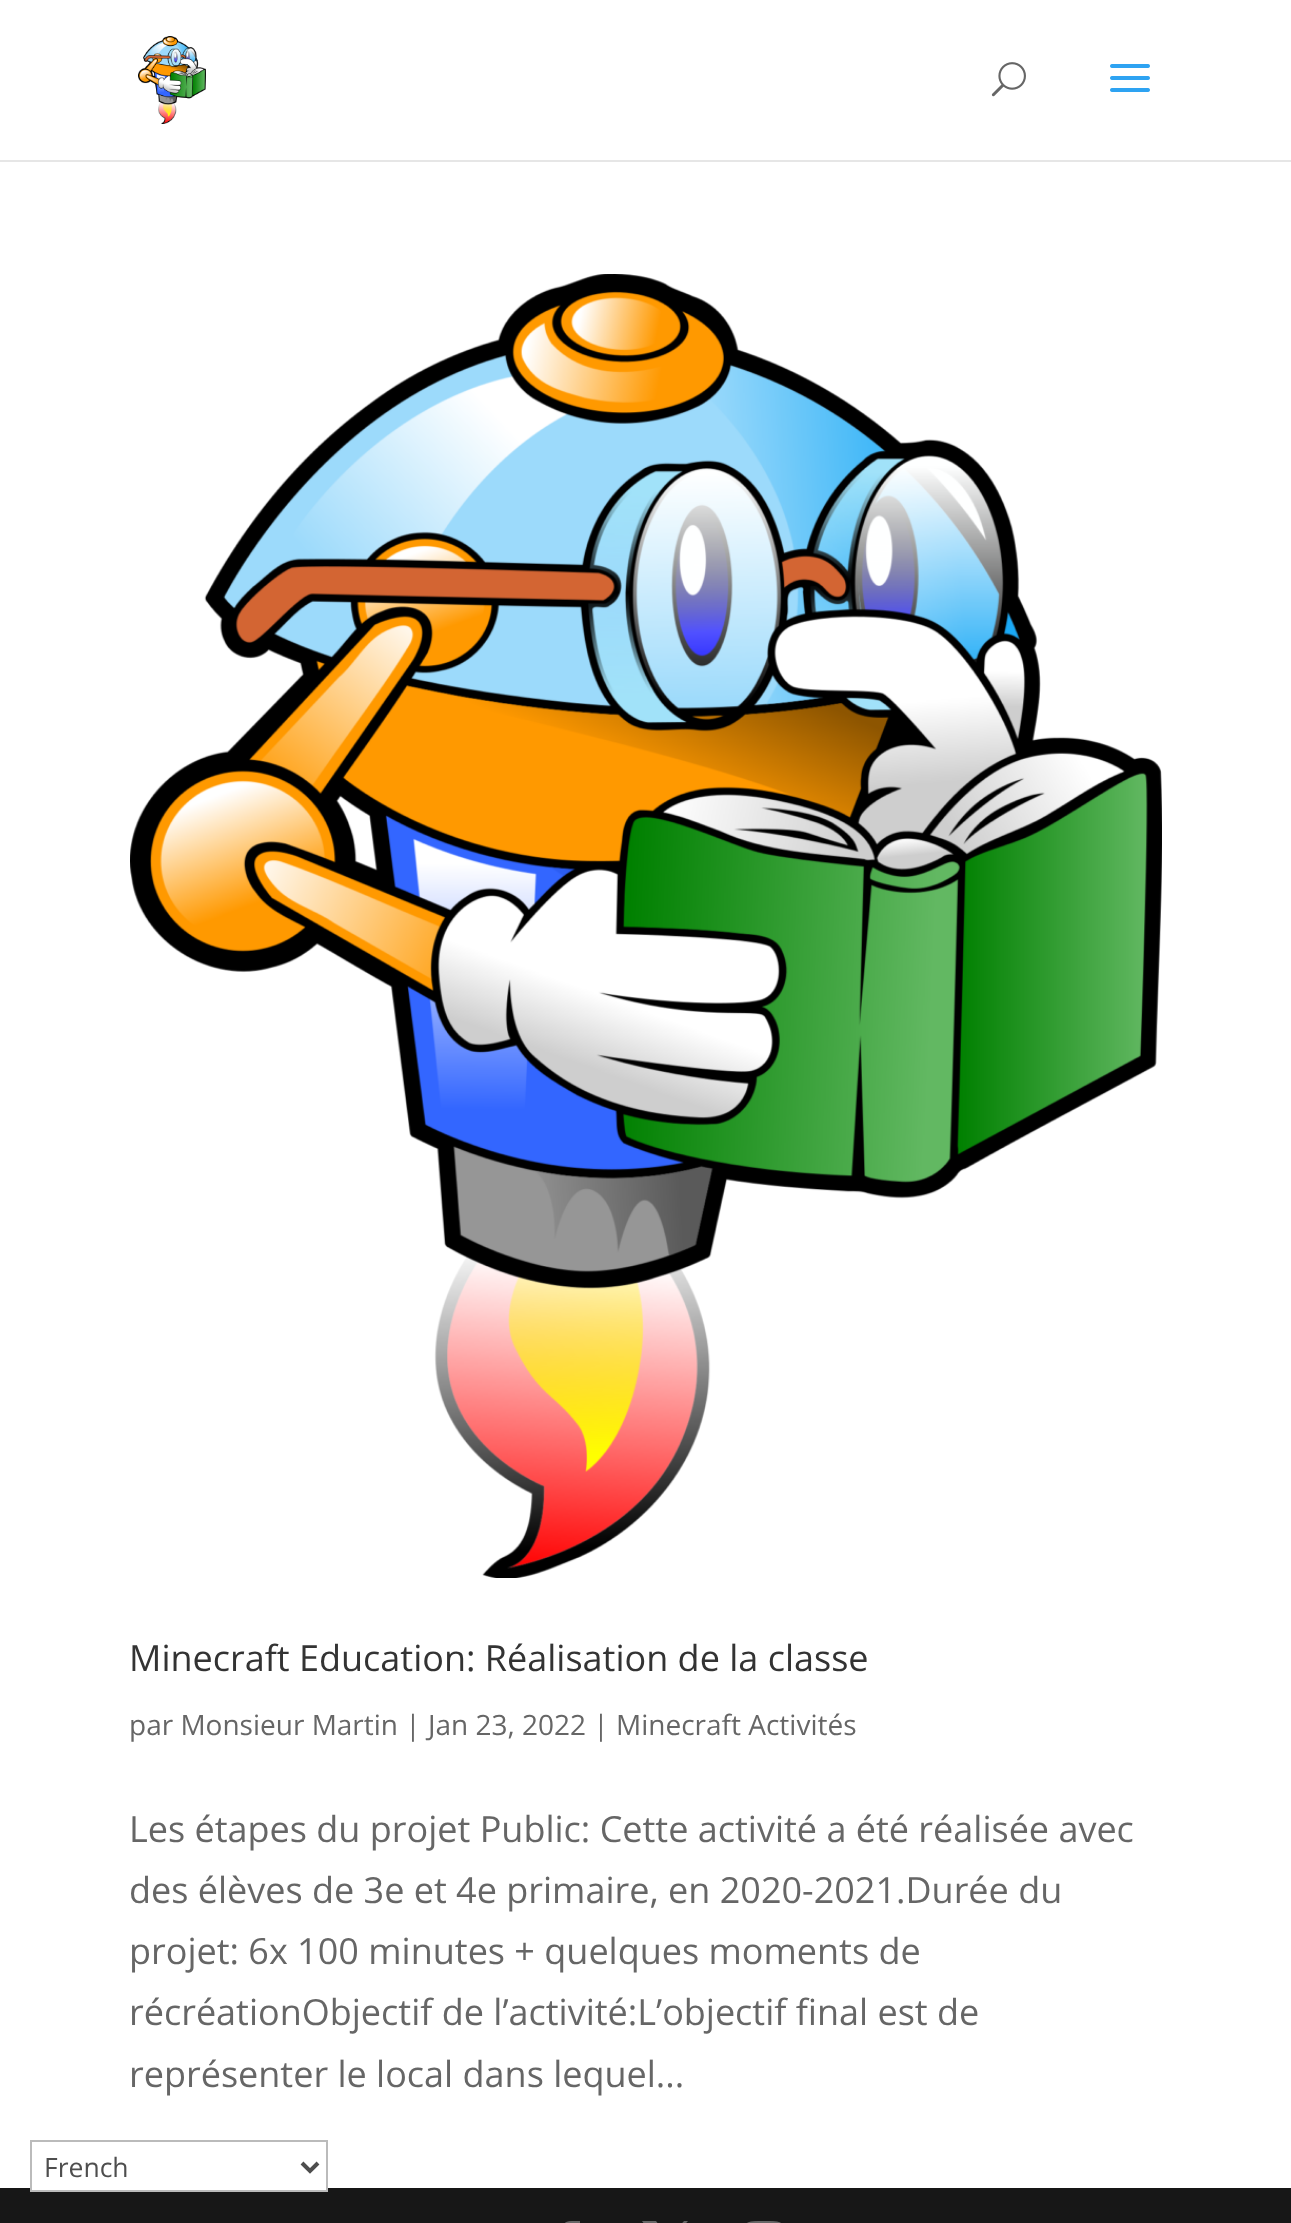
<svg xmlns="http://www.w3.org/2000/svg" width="1291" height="2223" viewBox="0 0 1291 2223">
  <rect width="100%" height="100%" fill="rgb(255,255,255)"/>
  <rect x="0" y="160" width="1291" height="2" fill="rgb(230,230,230)"/>
  <image x="138" y="36" width="68" height="88" href="pic1.png"/>
  <image x="991" y="62" width="35" height="35" href="pic2.png"/>
  <image x="1110" y="64" width="40" height="28" href="pic3.png"/>
  <image x="130" y="274" width="1032" height="1304" href="pic4.png"/>
  <text x="129" y="1671" font-family="Open Sans" font-size="36" fill="rgb(51,51,51)">Minecraft Education: Réalisation de la classe</text>
  <text x="129" y="1735" font-family="Open Sans" font-size="28" fill="rgb(102,102,102)">par Monsieur Martin | Jan 23, 2022 | Minecraft Activités</text>
  <g font-family="Open Sans" font-size="36" fill="rgb(102,102,102)">
    <text>
      <tspan x="129" y="1842">Les étapes du projet Public: Cette activité a été réalisée avec</tspan>
      <tspan x="129" y="1903">des élèves de 3e et 4e primaire, en 2020-2021.Durée du</tspan>
      <tspan x="129" y="1964">projet: 6x 100 minutes + quelques moments de</tspan>
      <tspan x="129" y="2025">récréationObjectif de l’activité:L’objectif final est de</tspan>
      <tspan x="129" y="2087">représenter le local dans lequel...</tspan>
    </text>
  </g>
  <rect x="0" y="2188" width="1291" height="35" fill="rgb(23,23,23)"/>
  <image x="565" y="2221" width="15" height="2" href="pic5.png"/>
  <path d="M642 2221L661 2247L642 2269H646L663 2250L676 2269H690L670 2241L688 2221H684L669 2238L656 2221ZM648 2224H655L684 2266H677Z" fill="rgb(102,102,102)"/>
  <image x="747" y="2221" width="34" height="2" href="pic6.png"/>
  <rect x="32" y="2188" width="294" height="2" fill="rgb(255,255,255)"/>
  <rect x="31" y="2141" width="296" height="50" fill="none" stroke="rgb(187,187,187)" stroke-width="2"/>
  <path d="M302 2163L310 2171L318 2163" fill="none" stroke="rgb(78,78,78)" stroke-width="4"/>
  <text x="44" y="2177" font-family="Open Sans" font-size="26.5" fill="rgb(78,78,78)">French</text>
</svg>
